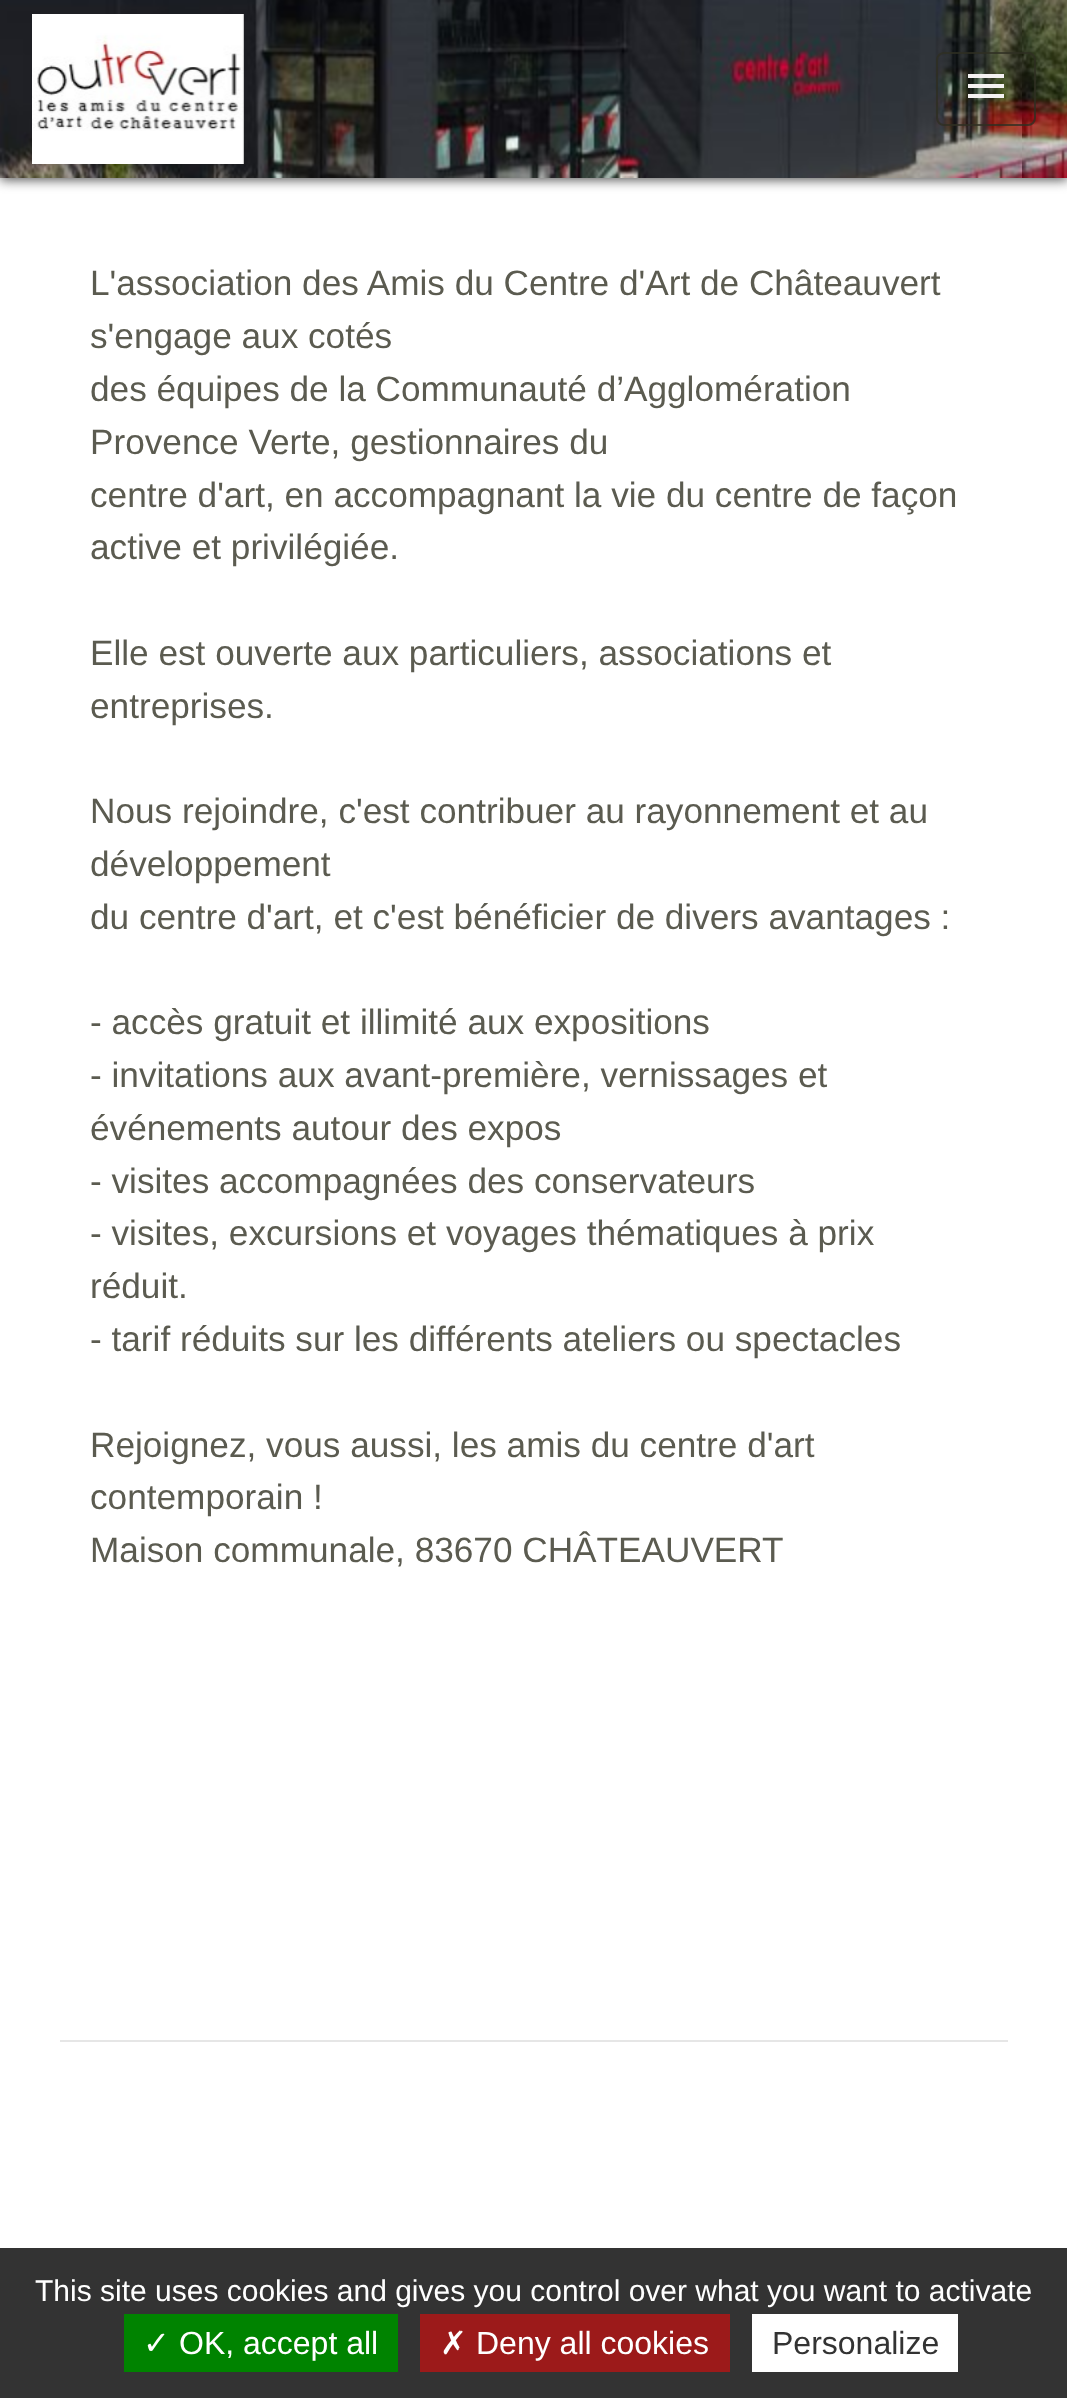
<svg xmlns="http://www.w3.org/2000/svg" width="1067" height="2398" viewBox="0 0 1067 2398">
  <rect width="100%" height="100%" fill="rgb(255,255,255)"/>
  <rect x="0" y="2" width="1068" height="178" fill="rgb(83,83,83)" filter="blur(6px)"/>
  <image x="0" y="0" width="1067" height="178" href="pic1.png"/>
  <image x="32" y="14" width="212" height="150" href="pic2.png"/>
  <rect x="937" y="53" width="98" height="72" rx="7" fill="none" stroke="rgba(47,47,34,0.79)" stroke-width="2"/>
  <path d="M968 74H1004V78H968ZM968 88V84H1004V88ZM968 98V94H1004V98Z" fill="rgb(244,241,241)"/>
  <g font-family="Liberation Sans" font-size="35.2" fill="rgb(91,91,80)">
    <text>
      <tspan x="90" y="295">L'association des Amis du Centre d'Art de Châteauvert</tspan>
      <tspan x="90" y="348">s'engage aux cotés</tspan>
      <tspan x="90" y="401">des équipes de la Communauté d’Agglomération</tspan>
      <tspan x="90" y="454">Provence Verte, gestionnaires du</tspan>
      <tspan x="90" y="507">centre d'art, en accompagnant la vie du centre de façon</tspan>
      <tspan x="90" y="559">active et privilégiée.</tspan>
    </text>
    <text>
      <tspan x="90" y="665">Elle est ouverte aux particuliers, associations et</tspan>
      <tspan x="90" y="718">entreprises.</tspan>
    </text>
    <text>
      <tspan x="90" y="823">Nous rejoindre, c'est contribuer au rayonnement et au</tspan>
      <tspan x="90" y="876">développement</tspan>
      <tspan x="90" y="929">du centre d'art, et c'est bénéficier de divers avantages :</tspan>
    </text>
    <text>
      <tspan x="90" y="1034">- accès gratuit et illimité aux expositions</tspan>
      <tspan x="90" y="1087">- invitations aux avant-première, vernissages et</tspan>
      <tspan x="90" y="1140">événements autour des expos</tspan>
      <tspan x="90" y="1193">- visites accompagnées des conservateurs</tspan>
      <tspan x="90" y="1245">- visites, excursions et voyages thématiques à prix</tspan>
      <tspan x="90" y="1298">réduit.</tspan>
      <tspan x="90" y="1351">- tarif réduits sur les différents ateliers ou spectacles</tspan>
    </text>
    <text>
      <tspan x="90" y="1457">Rejoignez, vous aussi, les amis du centre d'art</tspan>
      <tspan x="90" y="1509">contemporain !</tspan>
      <tspan x="90" y="1562">Maison communale, 83670 CHÂTEAUVERT</tspan>
    </text>
  </g>
  <rect x="60" y="2040" width="948" height="2" fill="rgb(230,230,230)"/>
  <rect x="0" y="2248" width="1067" height="150" fill="rgb(51,51,51)"/>
  <text x="35" y="2301" font-family="Liberation Sans" font-size="30" fill="rgb(255,255,255)">This site uses cookies and gives you control over what you want to activate</text>
  <rect x="124" y="2314" width="274" height="58" fill="rgb(0,131,0)"/>
  <text x="143" y="2354" font-family="DejaVu Sans" font-size="32" fill="rgb(255,255,255)">✓</text>
  <text x="179" y="2354" font-family="Liberation Sans" font-size="32" fill="rgb(255,255,255)">OK, accept all</text>
  <rect x="420" y="2314" width="310" height="58" fill="rgb(156,26,26)"/>
  <text x="440" y="2354" font-family="DejaVu Sans" font-size="32" fill="rgb(255,255,255)">✗</text>
  <text x="476" y="2354" font-family="Liberation Sans" font-size="32" fill="rgb(255,255,255)">Deny all cookies</text>
  <rect x="752" y="2314" width="206" height="58" fill="rgb(255,255,255)"/>
  <text x="772" y="2354" font-family="Liberation Sans" font-size="32" fill="rgb(51,51,51)">Personalize</text>
</svg>
